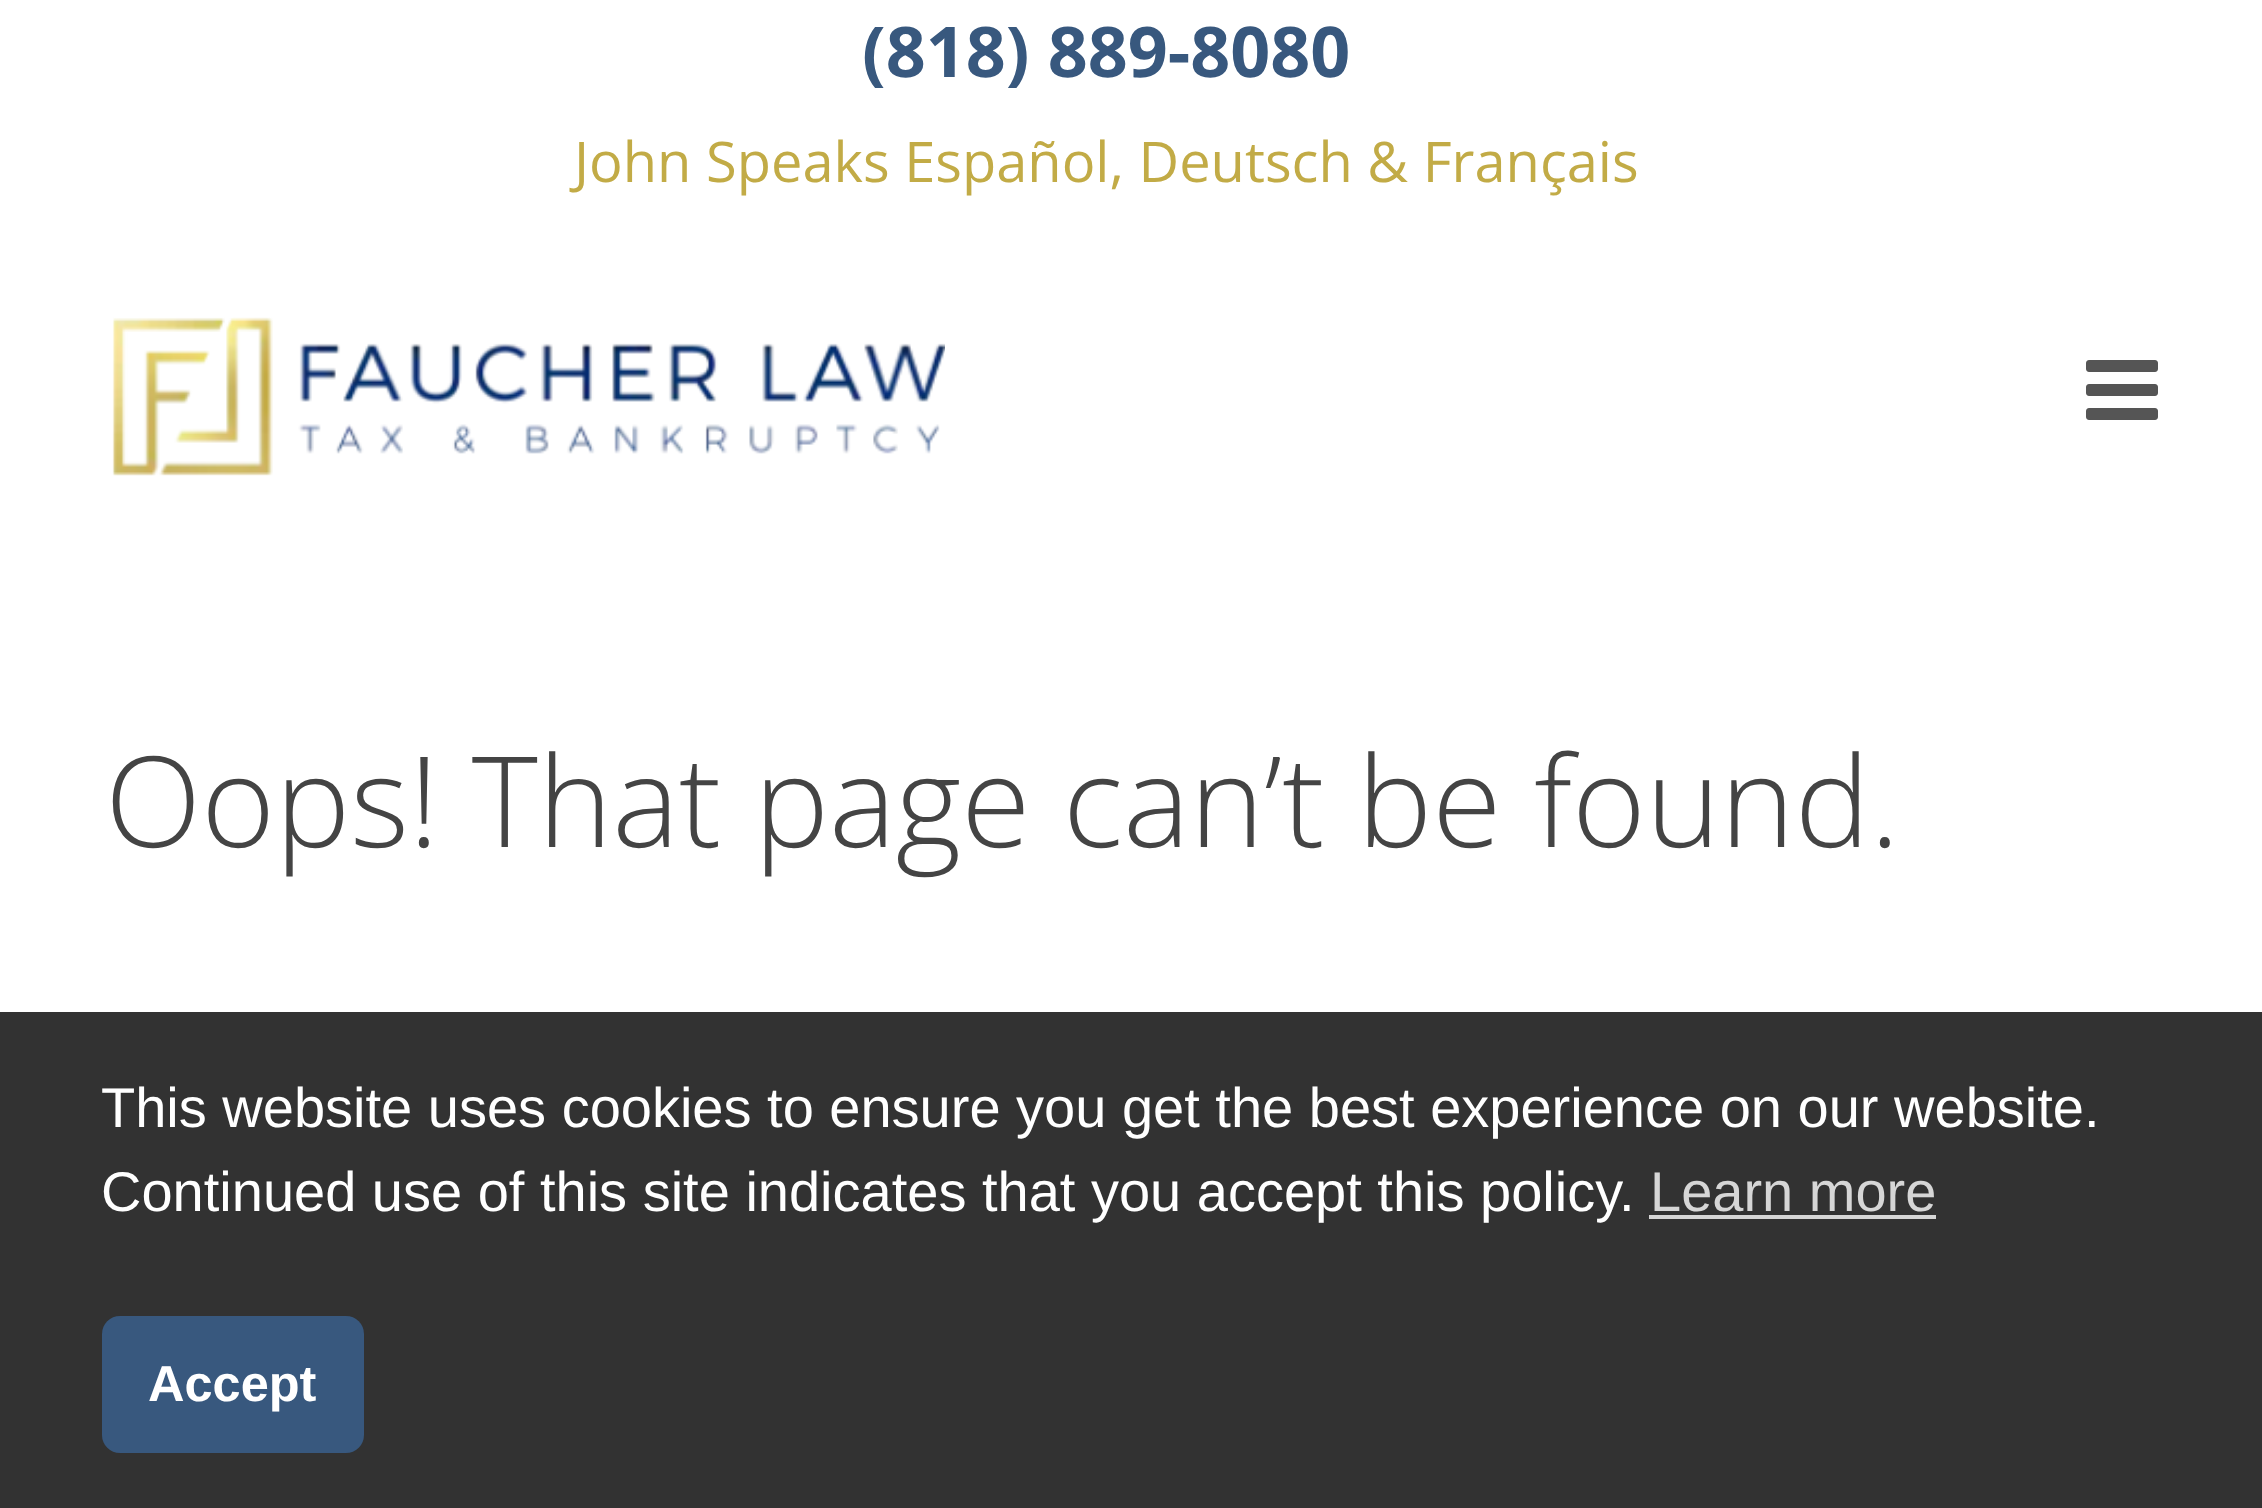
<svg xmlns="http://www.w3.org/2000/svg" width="2262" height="1508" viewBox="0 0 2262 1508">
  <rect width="100%" height="100%" fill="rgb(255,255,255)"/>
  <text x="862" y="77" font-family="Open Sans" font-size="70" font-weight="bold" fill="rgb(56,88,126)">(818) 889-8080</text>
  <text x="574" y="182" font-family="Open Sans" font-size="56" fill="rgb(194,171,70)">John Speaks Español, Deutsch &amp; Français</text>
  <image x="112" y="317" width="833" height="159" href="pic1.png"/>
  <image x="2086" y="360" width="72" height="60" href="pic2.png"/>
  <text x="105" y="847" font-family="Open Sans" font-size="126" font-weight="300" fill="rgb(68,68,68)">Oops! That page can’t be found.</text>
  <rect x="0" y="1012" width="2262" height="496" fill="rgb(50,50,50)"/>
  <g font-family="Liberation Sans" font-size="56" fill="rgb(255,255,255)">
    <text>
      <tspan x="101" y="1127">This website uses cookies to ensure you get the best experience on our website.</tspan>
      <tspan x="101" y="1211">Continued use of this site indicates that you accept this policy.</tspan>
    </text>
  </g>
  <text x="1650" y="1211" font-family="Liberation Sans" font-size="56" fill="rgb(214,214,214)">Learn more</text>
  <rect x="1649" y="1215" width="287" height="4" fill="rgb(214,214,214)"/>
  <rect x="102" y="1316" width="262" height="137" rx="18" fill="rgb(56,88,126)"/>
  <text x="148" y="1401" font-family="Liberation Sans" font-size="50.5" font-weight="bold" fill="rgb(255,255,255)">Accept</text>
</svg>
